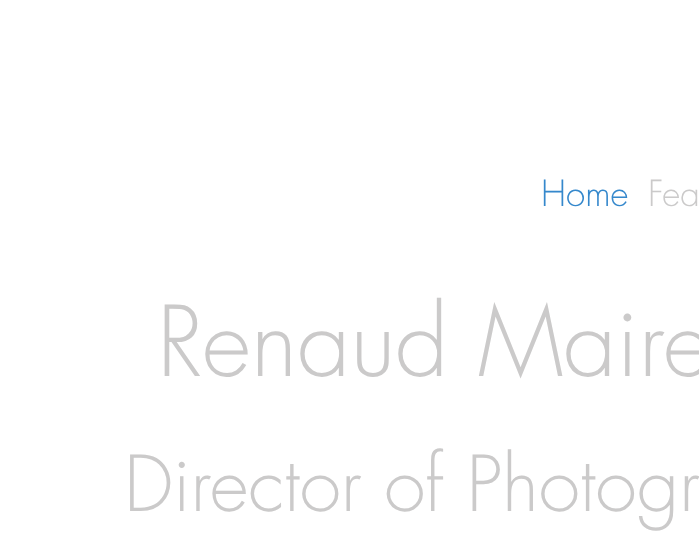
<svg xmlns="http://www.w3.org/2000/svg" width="699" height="535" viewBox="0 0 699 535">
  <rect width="100%" height="100%" fill="rgb(255,255,255)"/>
  <text x="541" y="206" font-family="futura" font-size="35" font-weight="300" fill="rgb(53,136,204)">Home</text>
  <text x="648" y="206" font-family="futura" font-size="35" font-weight="300" fill="rgb(203,202,202)">Fea</text>
  <text x="157" y="376" font-family="futura" font-size="95" font-weight="300" fill="rgb(203,202,202)">Renaud Maire</text>
  <text x="124" y="511" font-family="futura" font-size="75" font-weight="300" fill="rgb(203,202,202)">Director of Photogr</text>
</svg>
